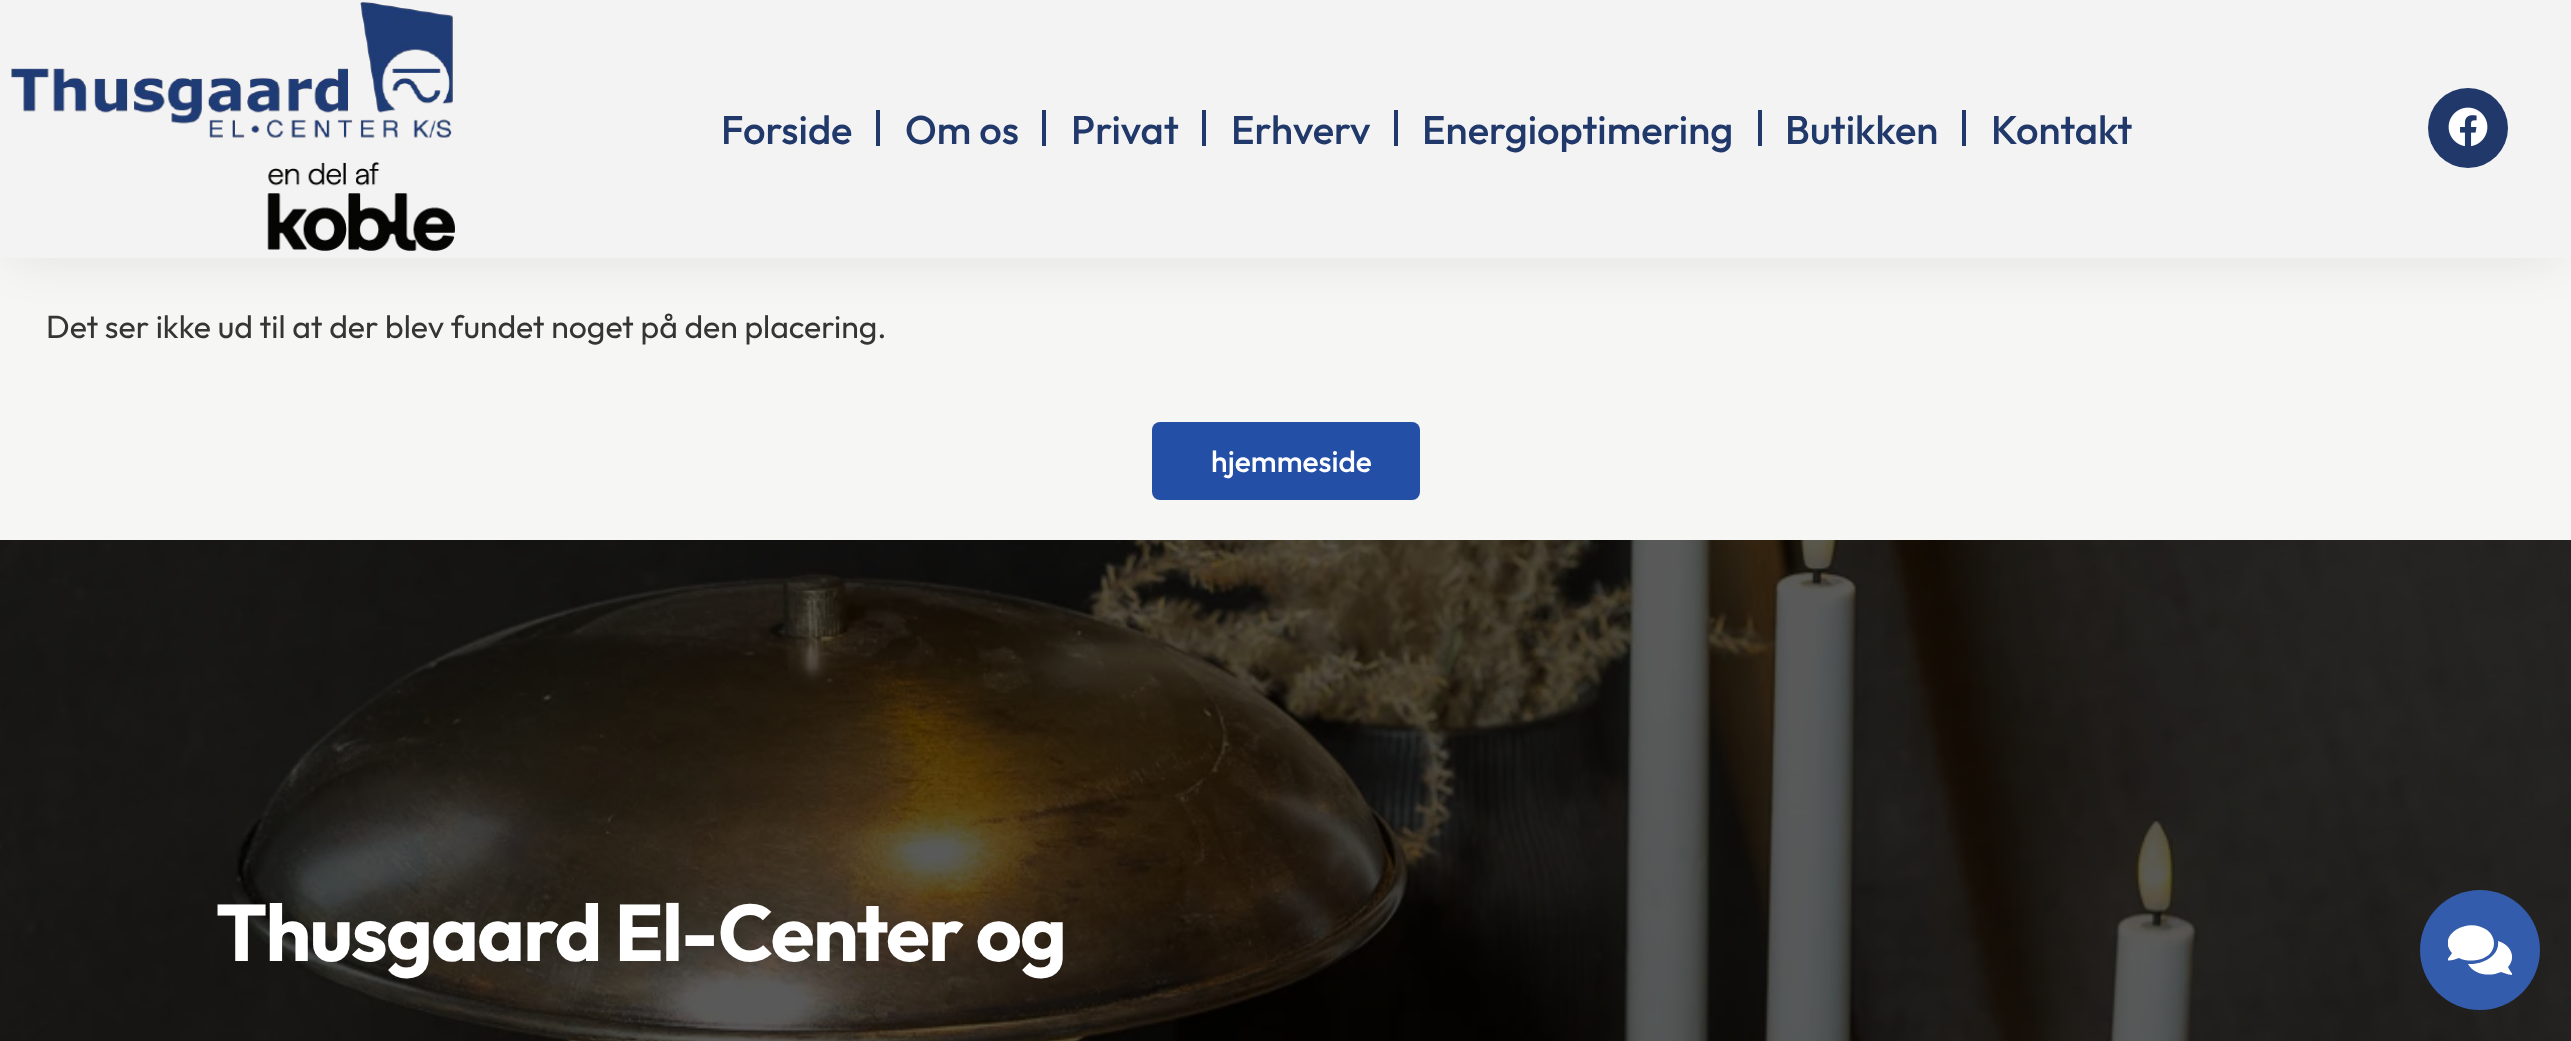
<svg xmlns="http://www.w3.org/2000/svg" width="2571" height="1041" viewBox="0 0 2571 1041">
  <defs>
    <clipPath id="clip1"><rect x="2448" y="918" width="64" height="64"/></clipPath>
  </defs>
  <rect width="100%" height="100%" fill="rgb(246,246,244)"/>
  <rect x="10" y="18" width="2552" height="238" fill="rgba(0,0,0,0.09)" filter="blur(26px)"/>
  <rect x="0" y="0" width="2571" height="258" fill="rgb(243,243,243)"/>
  <image x="11" y="2" width="444" height="249" href="pic1.png"/>
  <text x="721" y="144" font-family="Outfit" font-size="40" font-weight="500" fill="rgb(32,56,106)">Forside</text>
  <rect x="876" y="110" width="4" height="36" fill="rgb(32,56,106)"/>
  <text x="905" y="144" font-family="Outfit" font-size="40" font-weight="500" fill="rgb(32,56,106)">Om os</text>
  <rect x="1042" y="110" width="4" height="36" fill="rgb(32,56,106)"/>
  <text x="1071" y="144" font-family="Outfit" font-size="40" font-weight="500" fill="rgb(32,56,106)">Privat</text>
  <rect x="1202" y="110" width="4" height="36" fill="rgb(32,56,106)"/>
  <text x="1231" y="144" font-family="Outfit" font-size="40" font-weight="500" fill="rgb(32,56,106)">Erhverv</text>
  <rect x="1394" y="110" width="4" height="36" fill="rgb(32,56,106)"/>
  <text x="1422" y="144" font-family="Outfit" font-size="40" font-weight="500" fill="rgb(32,56,106)">Energioptimering</text>
  <rect x="1758" y="110" width="4" height="36" fill="rgb(32,56,106)"/>
  <text x="1785" y="144" font-family="Outfit" font-size="40" font-weight="500" fill="rgb(32,56,106)">Butikken</text>
  <rect x="1962" y="110" width="4" height="36" fill="rgb(32,56,106)"/>
  <text x="1991" y="144" font-family="Outfit" font-size="40" font-weight="500" fill="rgb(32,56,106)">Kontakt</text>
  <circle cx="2468" cy="128" r="40" fill="rgb(32,56,106)"/>
  <image x="2448" y="107" width="40" height="40" href="pic2.png"/>
  <text x="46" y="338" font-family="Outfit" font-size="32" fill="rgb(53,53,53)">Det ser ikke ud til at der blev fundet noget på den placering.</text>
  <rect x="1152" y="422" width="268" height="78" rx="8" fill="rgb(36,79,166)"/>
  <text x="1211" y="472" font-family="Outfit" font-size="30" font-weight="500" fill="rgb(255,255,255)">hjemmeside</text>
  <image x="0" y="540" width="2571" height="501" href="pic3.png"/>
  <text x="216" y="961" font-family="Outfit" font-size="80" font-weight="bold" letter-spacing="-1.6" fill="rgb(255,255,255)">Thusgaard El-Center og</text>
  <circle cx="2480" cy="950" r="60" fill="rgb(52,92,172)"/>
  <g clip-path="url(#clip1)">
    <path d="M2494 943C2494 938 2491 933 2487 930C2468 916 2436 935 2452 953C2450 957 2443 962 2453 960L2459 958C2471 964 2494 960 2494 943ZM2508 967C2517 957 2510 944 2498 941C2500 957 2481 965 2468 964C2474 975 2490 977 2501 972L2507 974C2517 977 2510 972 2508 967Z" fill="rgb(255,255,255)"/>
  </g>
</svg>
